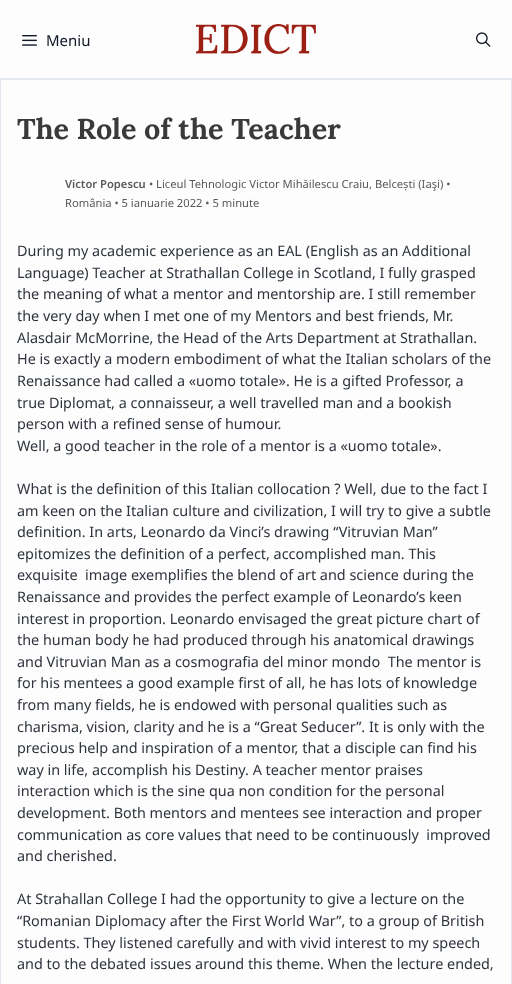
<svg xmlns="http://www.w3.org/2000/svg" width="512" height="984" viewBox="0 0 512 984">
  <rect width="100%" height="100%" fill="rgb(253,253,253)"/>
  <rect x="0" y="78" width="512" height="1" fill="rgb(229,231,235)"/>
  <image x="22" y="35" width="15" height="11" href="pic1.png"/>
  <text x="46" y="46" font-family="Noto Sans" font-size="15" fill="rgb(17,24,38)">Meniu</text>
  <image x="476" y="32" width="15" height="15" href="pic2.png"/>
  <image x="196" y="24" width="120" height="30" href="pic3.png"/>
  <rect x="0.5" y="79.5" width="511" height="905" fill="none" stroke="rgb(226,232,240)"/>
  <text x="17" y="139" font-family="Lora" font-size="28.75" font-weight="bold" fill="rgb(58,58,58)">The Role of the Teacher</text>
  <text x="65" y="188" font-family="Noto Sans" font-size="11.2" font-weight="600" fill="rgb(89,89,89)">Victor Popescu</text>
  <g font-family="Noto Sans" font-size="11.2" fill="rgb(89,89,89)">
    <text x="149" y="188">• Liceul Tehnologic Victor Mihăilescu Craiu, Belcești (Iaşi) •</text>
    <text x="65" y="207">România • 5 ianuarie 2022 • 5 minute</text>
  </g>
  <g font-family="Noto Sans" font-size="14.4" fill="rgb(46,51,60)">
    <text>
      <tspan x="17" y="256">During my academic experience as an EAL (English as an Additional</tspan>
      <tspan x="17" y="278">Language) Teacher at Strathallan College in Scotland, I fully grasped</tspan>
      <tspan x="17" y="299">the meaning of what a mentor and mentorship are. I still remember</tspan>
      <tspan x="17" y="321">the very day when I met one of my Mentors and best friends, Mr.</tspan>
      <tspan x="17" y="343">Alasdair McMorrine, the Head of the Arts Department at Strathallan.</tspan>
      <tspan x="17" y="364">He is exactly a modern embodiment of what the Italian scholars of the</tspan>
      <tspan x="17" y="386">Renaissance had called a «uomo totale». He is a gifted Professor, a</tspan>
      <tspan x="17" y="408">true Diplomat, a connaisseur, a well travelled man and a bookish</tspan>
      <tspan x="17" y="429">person with a refined sense of humour.</tspan>
      <tspan x="17" y="451">Well, a good teacher in the role of a mentor is a «uomo totale».</tspan>
    </text>
    <text xml:space="preserve"><tspan x="17" y="494">What is the definition of this Italian collocation ? Well, due to the fact I</tspan><tspan x="17" y="516">am keen on the Italian culture and civilization, I will try to give a subtle</tspan><tspan x="17" y="537">definition. In arts, Leonardo da Vinci’s drawing “Vitruvian Man”</tspan><tspan x="17" y="559">epitomizes the definition of a perfect, accomplished man. This</tspan><tspan x="17" y="580">exquisite  image exemplifies the blend of art and science during the</tspan><tspan x="17" y="602">Renaissance and provides the perfect example of Leonardo’s keen</tspan><tspan x="17" y="624">interest in proportion. Leonardo envisaged the great picture chart of</tspan><tspan x="17" y="645">the human body he had produced through his anatomical drawings</tspan><tspan x="17" y="667">and Vitruvian Man as a cosmografia del minor mondo  The mentor is</tspan><tspan x="17" y="688">for his mentees a good example first of all, he has lots of knowledge</tspan><tspan x="17" y="710">from many fields, he is endowed with personal qualities such as</tspan><tspan x="17" y="732">charisma, vision, clarity and he is a “Great Seducer”. It is only with the</tspan><tspan x="17" y="753">precious help and inspiration of a mentor, that a disciple can find his</tspan><tspan x="17" y="775">way in life, accomplish his Destiny. A teacher mentor praises</tspan><tspan x="17" y="796">interaction which is the sine qua non condition for the personal</tspan><tspan x="17" y="818">development. Both mentors and mentees see interaction and proper</tspan><tspan x="17" y="840">communication as core values that need to be continuously  improved</tspan><tspan x="17" y="861">and cherished.</tspan></text>
    <text>
      <tspan x="17" y="904">At Strahallan College I had the opportunity to give a lecture on the</tspan>
      <tspan x="17" y="926">“Romanian Diplomacy after the First World War”, to a group of British</tspan>
      <tspan x="17" y="948">students. They listened carefully and with vivid interest to my speech</tspan>
      <tspan x="17" y="969">and to the debated issues around this theme. When the lecture ended,</tspan>
    </text>
  </g>
</svg>
